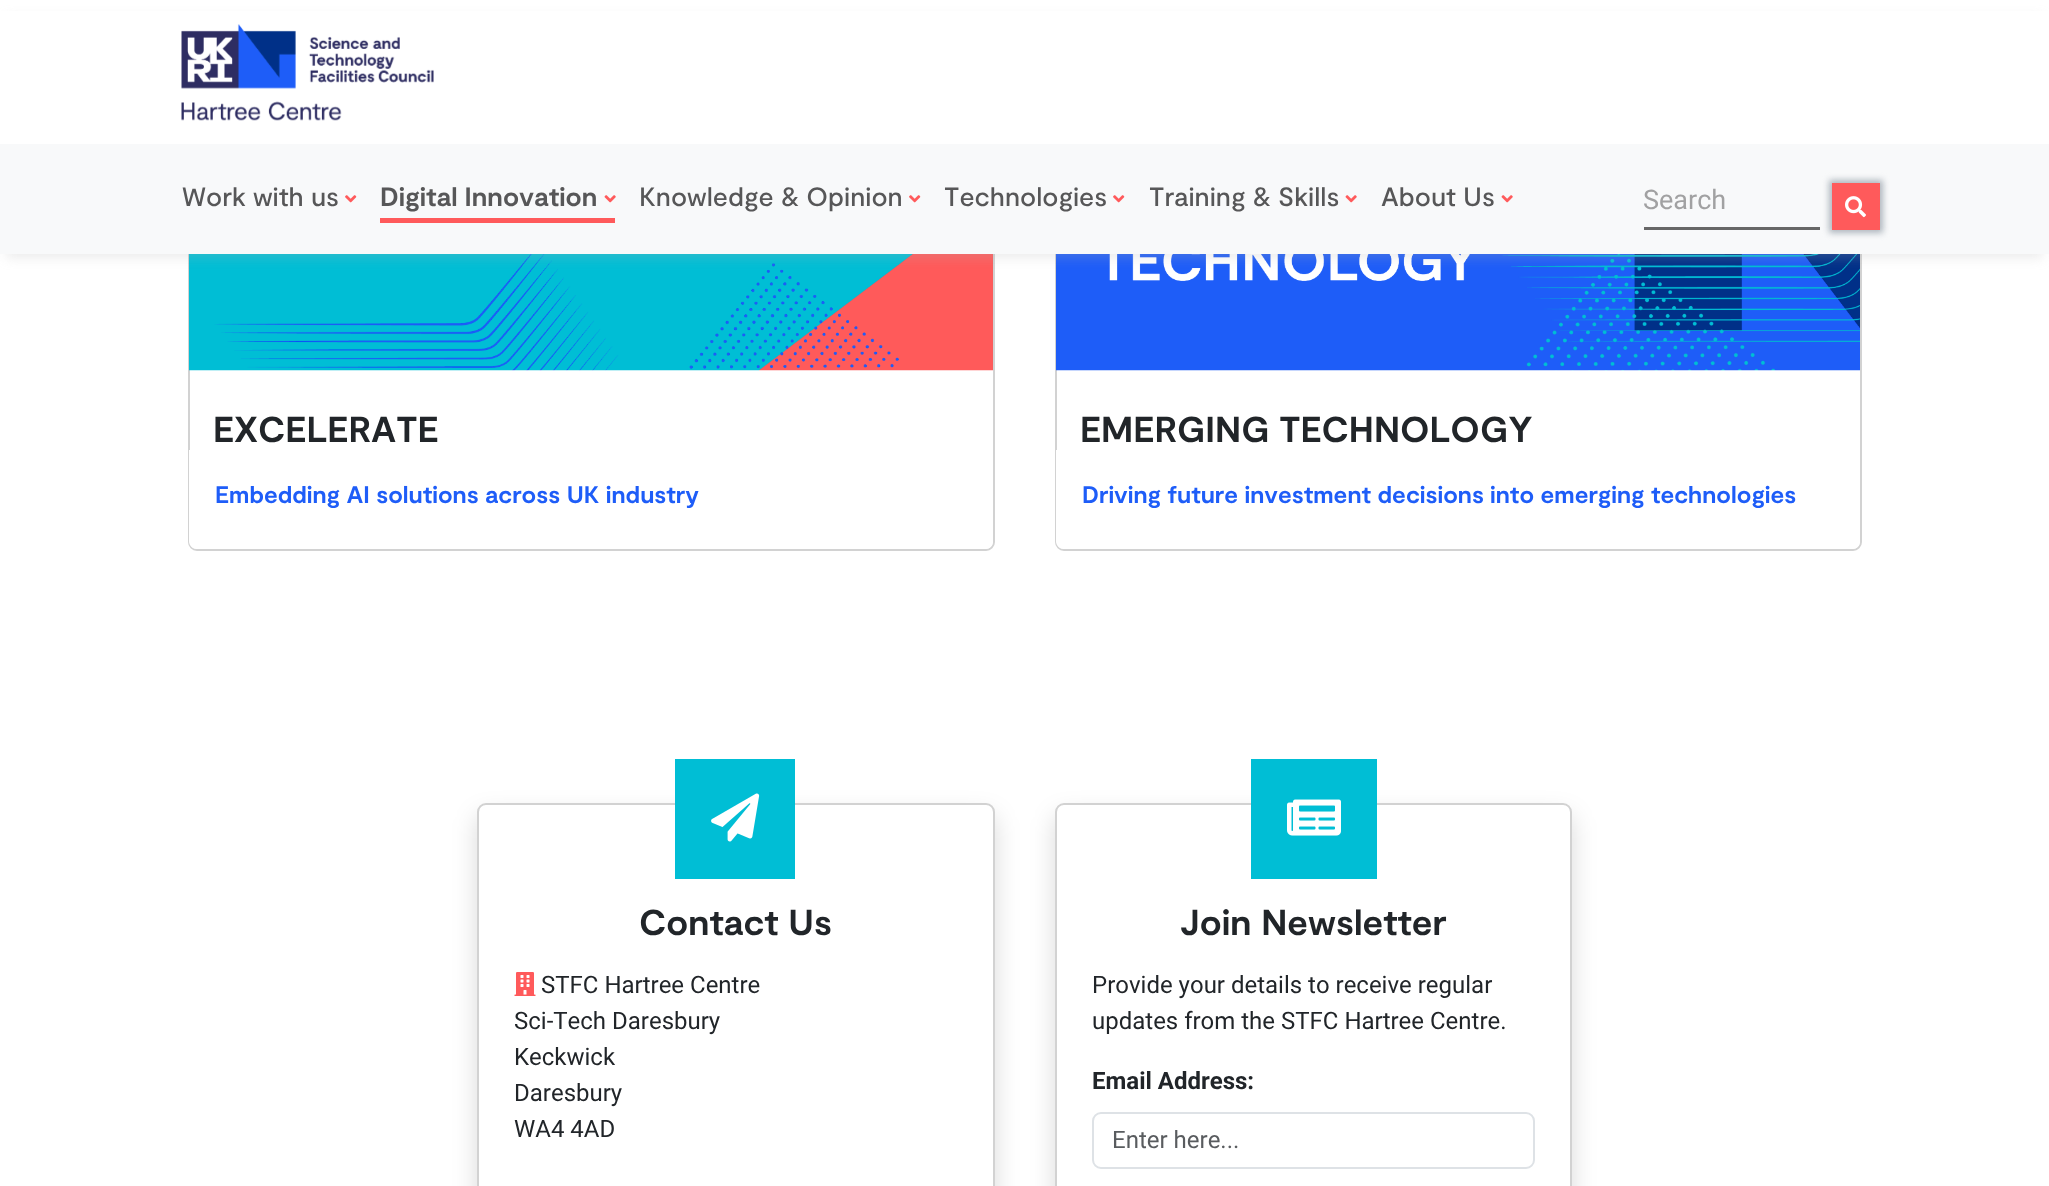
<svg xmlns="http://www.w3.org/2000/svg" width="2049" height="1186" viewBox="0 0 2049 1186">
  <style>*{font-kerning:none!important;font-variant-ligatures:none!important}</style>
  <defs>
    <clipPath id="clip1"><path d="M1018 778H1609V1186H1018ZM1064 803H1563C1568 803 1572 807 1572 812V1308C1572 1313 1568 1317 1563 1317H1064C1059 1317 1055 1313 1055 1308V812C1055 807 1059 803 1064 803Z" clip-rule="evenodd"/></clipPath>
  </defs>
  <rect width="100%" height="100%" fill="rgb(255,255,255)"/>
  <rect x="189" y="103" width="805" height="447" rx="8" fill="none" stroke="rgb(210,210,210)" stroke-width="2"/>
  <image x="189" y="254" width="804" height="117" href="pic5.png"/>
  <rect x="1056" y="103" width="805" height="447" rx="8" fill="none" stroke="rgb(210,210,210)" stroke-width="2"/>
  <image x="1056" y="254" width="804" height="117" href="pic6.png"/>
  <rect x="6" y="17" width="2037" height="241" fill="rgba(181,181,181,0.25)" filter="blur(6px)"/>
  <rect x="0" y="11" width="2049" height="133" fill="rgb(255,255,255)"/>
  <image x="181" y="24" width="253" height="97" href="pic1.png"/>
  <rect x="0" y="144" width="2049" height="110" fill="rgb(248,249,250)"/>
  <text x="182" y="206" font-family="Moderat" font-size="26.5" font-weight="500" fill="rgb(87,87,88)">Work with us</text>
  <image x="345" y="195" width="12" height="8" href="pic2.png"/>
  <rect x="380" y="218" width="235" height="5" fill="rgb(255,90,91)"/>
  <text x="380" y="206" font-family="Moderat" font-size="26.5" font-weight="bold" fill="rgb(87,87,88)">Digital Innovation</text>
  <image x="604" y="195" width="12" height="8" href="pic3.png"/>
  <text x="639" y="206" font-family="Moderat" font-size="26.5" font-weight="500" fill="rgb(87,87,88)">Knowledge &amp; Opinion</text>
  <image x="909" y="195" width="12" height="8" href="pic2.png"/>
  <text x="944" y="206" font-family="Moderat" font-size="26.5" font-weight="500" fill="rgb(87,87,88)">Technologies</text>
  <image x="1113" y="195" width="12" height="8" href="pic2.png"/>
  <text x="1149" y="206" font-family="Moderat" font-size="26.5" font-weight="500" fill="rgb(87,87,88)">Training &amp; Skills</text>
  <image x="1345" y="195" width="12" height="8" href="pic3.png"/>
  <text x="1381" y="206" font-family="Moderat" font-size="26.5" font-weight="500" fill="rgb(87,87,88)">About Us</text>
  <image x="1501" y="195" width="12" height="8" href="pic3.png"/>
  <text x="1643" y="209" font-family="'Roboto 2'" font-size="27" fill="rgb(161,161,162)">Search</text>
  <rect x="1644" y="227" width="176" height="3" fill="rgb(103,103,103)"/>
  <rect x="1829" y="180" width="54" height="53" fill="rgb(173,181,189)" filter="blur(3px)"/>
  <rect x="1832" y="183" width="48" height="47" fill="rgb(255,90,91)"/>
  <image x="1845" y="196" width="21" height="22" href="pic4.png"/>
  <text x="213" y="442" font-family="Moderat" font-size="36" font-weight="bold" fill="rgb(33,37,41)">EXCELERATE</text>
  <path d="M189 450H993V541C993 545.5 989.5 549 985 549H197C192.5 549 189 545.5 189 541Z" fill="rgb(255,255,255)"/>
  <text x="215" y="503" font-family="Moderat" font-size="24" font-weight="bold" fill="rgb(30,93,248)">Embedding AI solutions across UK industry</text>
  <text x="1080" y="442" font-family="Moderat" font-size="36" font-weight="bold" fill="rgb(33,37,41)">EMERGING TECHNOLOGY</text>
  <path d="M1056 450H1860V541C1860 545.5 1856.5 549 1852 549H1064C1059.5 549 1056 545.5 1056 541Z" fill="rgb(255,255,255)"/>
  <text x="1082" y="503" font-family="Moderat" font-size="24" font-weight="bold" fill="rgb(30,93,248)">Driving future investment decisions</text>
  <text x="1490" y="503" font-family="Moderat" font-size="24" font-weight="bold" fill="rgb(30,93,248)">into emerging technologies</text>
  <rect x="477" y="815" width="518" height="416" rx="9" fill="rgba(0,0,0,0.15)" filter="blur(12px)"/>
  <rect x="478" y="804" width="516" height="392" rx="8" fill="rgb(255,255,255)" stroke="rgb(210,210,210)" stroke-width="2"/>
  <rect x="675" y="759" width="120" height="120" fill="rgb(0,190,213)"/>
  <image x="711" y="793" width="49" height="49" href="pic7.png"/>
  <text x="639" y="935" font-family="Moderat" font-size="36" font-weight="bold" fill="rgb(33,37,41)">Contact Us</text>
  <image x="514" y="972" width="22" height="24" href="pic8.png"/>
  <g font-family="Roboto" font-size="24" fill="rgb(33,37,41)">
    <text x="541" y="993">STFC Hartree Centre</text>
    <text>
      <tspan x="514" y="1029">Sci-Tech Daresbury</tspan>
      <tspan x="514" y="1065">Keckwick</tspan>
      <tspan x="514" y="1101">Daresbury</tspan>
      <tspan x="514" y="1137">WA4 4AD</tspan>
    </text>
  </g>
  <g clip-path="url(#clip1)">
    <rect x="1055" y="815" width="517" height="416" rx="9" fill="rgba(0,0,0,0.15)" filter="blur(12px)"/>
  </g>
  <rect x="1056" y="804" width="515" height="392" rx="8" fill="none" stroke="rgb(210,210,210)" stroke-width="2"/>
  <rect x="1251" y="759" width="126" height="120" fill="rgb(0,190,213)"/>
  <image x="1287" y="799" width="54" height="37" href="pic9.png"/>
  <text x="1180" y="935" font-family="Moderat" font-size="36" font-weight="bold" fill="rgb(33,37,41)">Join Newsletter</text>
  <g font-family="Roboto" font-size="24" fill="rgb(33,37,41)">
    <text>
      <tspan x="1092" y="993">Provide your details to receive regular</tspan>
      <tspan x="1092" y="1029">updates from the STFC Hartree Centre.</tspan>
    </text>
  </g>
  <text x="1092" y="1089" font-family="Roboto" font-size="24" font-weight="bold" fill="rgb(33,37,41)">Email Address:</text>
  <rect x="1093" y="1113" width="441" height="55" rx="8" fill="none" stroke="rgb(222,226,230)" stroke-width="2"/>
  <text x="1112" y="1148" font-family="'Roboto 2'" font-size="24" fill="rgb(89,92,95)">Enter here...</text>
</svg>
